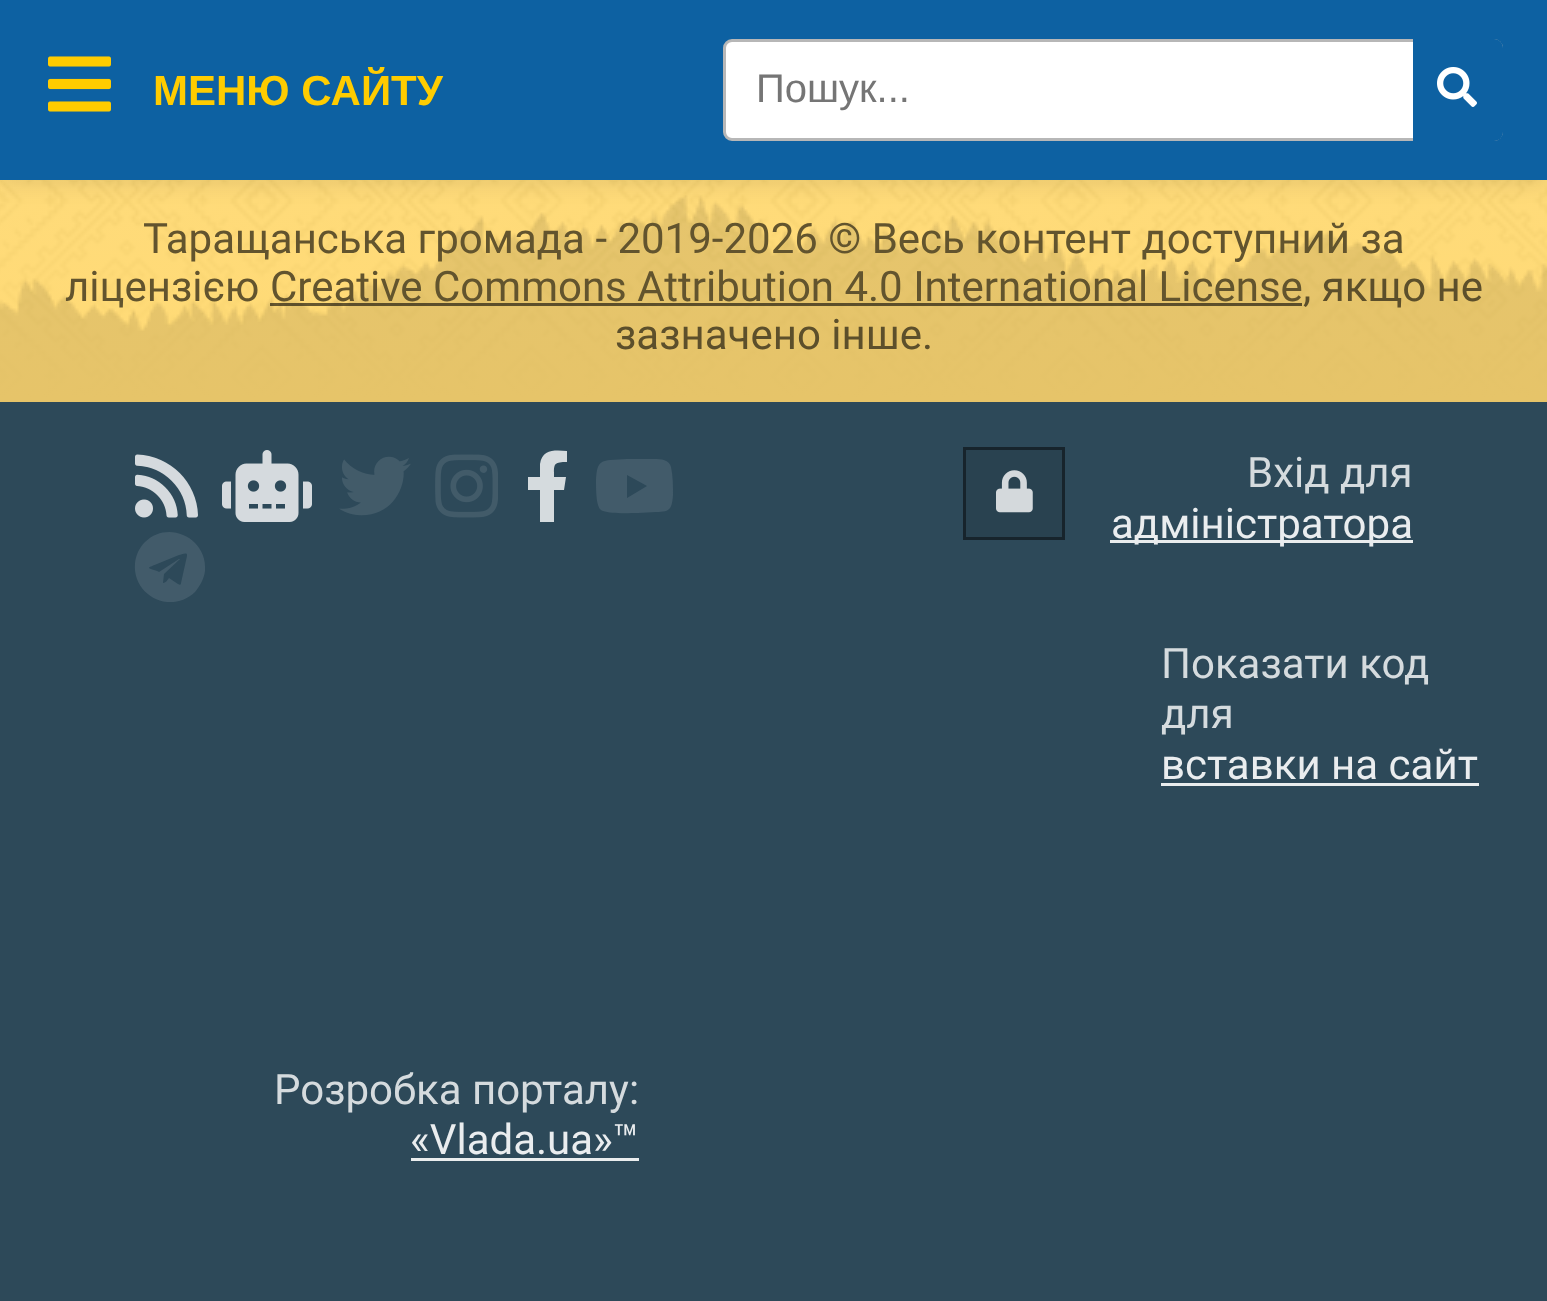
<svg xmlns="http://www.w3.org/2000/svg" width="1547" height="1301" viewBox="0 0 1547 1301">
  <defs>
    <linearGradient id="g1" gradientUnits="userSpaceOnUse" x1="774" y1="-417" x2="774" y2="402"><stop offset="0" stop-color="rgb(255,218,117)" stop-opacity="0"/><stop offset="1" stop-color="rgb(255,218,117)"/></linearGradient>
  </defs>
  <rect width="100%" height="100%" fill="rgb(255,218,117)"/>
  <image x="0" y="180" width="1547" height="217" href="pic1.png"/>
  <rect x="0" y="180" width="1547" height="217" fill="url(#g1)"/>
  <image x="0" y="195" width="1547" height="207" href="pic4.png"/>
  <rect x="0" y="3" width="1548" height="180" fill="rgba(0,0,0,0.1)" filter="blur(10.5px)"/>
  <rect x="0" y="0" width="1547" height="180" fill="rgb(13,97,162)"/>
  <image x="48" y="56" width="63" height="56" href="pic2.png"/>
  <text x="153" y="105" font-family="Liberation Sans" font-size="42" font-weight="bold" fill="rgb(255,204,0)">МЕНЮ САЙТУ</text>
  <rect x="724.5" y="40.5" width="777" height="99" rx="7.5" fill="rgb(255,255,255)" stroke="rgb(183,183,183)" stroke-width="3"/>
  <text x="756" y="102" font-family="Liberation Sans" font-size="40" fill="rgb(117,117,117)">Пошук...</text>
  <path d="M1413 39H1494C1499 39 1503 43 1503 48V132C1503 137 1499 141 1494 141H1413Z" fill="rgb(13,97,162)"/>
  <image x="1437" y="67" width="40" height="40" href="pic3.png"/>
  <g font-family="Roboto" font-size="42" fill="rgb(98,84,46)">
    <text x="143" y="253">Таращанська громада - 2019-2026 © Весь контент доступний за</text>
    <text x="65" y="301">ліцензією</text>
    <text x="270" y="301">Creative Commons Attribution 4.0 International License</text>
  </g>
  <rect x="270" y="303" width="1032" height="3" fill="rgba(0,0,0,0.6)"/>
  <g font-family="Roboto" font-size="42" fill="rgb(92,79,43)">
    <text x="1303" y="301">, якщо не</text>
    <text x="615" y="349">зазначено інше.</text>
  </g>
  <rect x="0" y="402" width="1547" height="899" fill="rgb(45,73,89)"/>
  <image x="135" y="454" width="63" height="64" href="pic5.png"/>
  <image x="222" y="450" width="90" height="72" href="pic6.png"/>
  <image x="339" y="456" width="72" height="60" href="pic7.png"/>
  <image x="435" y="454" width="63" height="64" href="pic8.png"/>
  <path d="M564 490H554V522H540V490H528V477H540V464C542 449 555 450 567 451V462C553 462 554 464 554 477H566Z" fill="rgb(213,219,222)"/>
  <path d="M671 467C673 476 673 486 673 495C672 509 670 512 656 512L638 513C629 513 611 514 603 511C600 510 599 508 598 505C596 498 596 487 596 480C597 468 597 461 610 460L627 459H650C657 459 669 458 671 467ZM627 498L647 486L627 475Z" fill="rgb(66,91,106)"/>
  <path d="M145 542C168 519 208 538 205 571C204 579 200 586 195 592C171 615 132 596 135 563C136 555 139 548 145 542ZM187 556C188 551 181 555 179 555L157 564C152 566 149 567 149 568C150 569 158 571 159 572L179 559C179 559 181 559 180 559L164 574L163 583C166 583 168 579 169 578L178 584C180 585 181 585 181 583Z" fill="rgb(66,91,106)"/>
  <rect x="964.5" y="448.5" width="99" height="90" fill="rgb(41,66,80)" stroke="rgb(23,36,44)" stroke-width="3"/>
  <image x="996" y="470" width="37" height="43" href="pic9.png"/>
  <text x="1247" y="487" font-family="Roboto" font-size="42" fill="rgb(213,219,222)">Вхід для</text>
  <rect x="1110" y="540" width="303" height="3" fill="rgb(234,237,238)"/>
  <text x="1111" y="538" font-family="Roboto" font-size="42" fill="rgb(234,237,239)">адміністратора</text>
  <g font-family="Roboto" font-size="42" fill="rgb(213,219,222)">
    <text>
      <tspan x="1161" y="678">Показати код</tspan>
      <tspan x="1161" y="728">для</tspan>
    </text>
  </g>
  <text x="1161" y="779" font-family="Roboto" font-size="42" fill="rgb(234,237,239)">вставки на сайт</text>
  <rect x="1161" y="783" width="318" height="3" fill="rgb(234,237,238)"/>
  <text x="274" y="1104" font-family="Roboto" font-size="42" fill="rgb(213,219,222)">Розробка порталу:</text>
  <text x="410" y="1154" font-family="Roboto" font-size="42" fill="rgb(234,237,239)">«Vlada.ua»™</text>
  <rect x="411" y="1158" width="228" height="3" fill="rgb(234,237,238)"/>
</svg>
